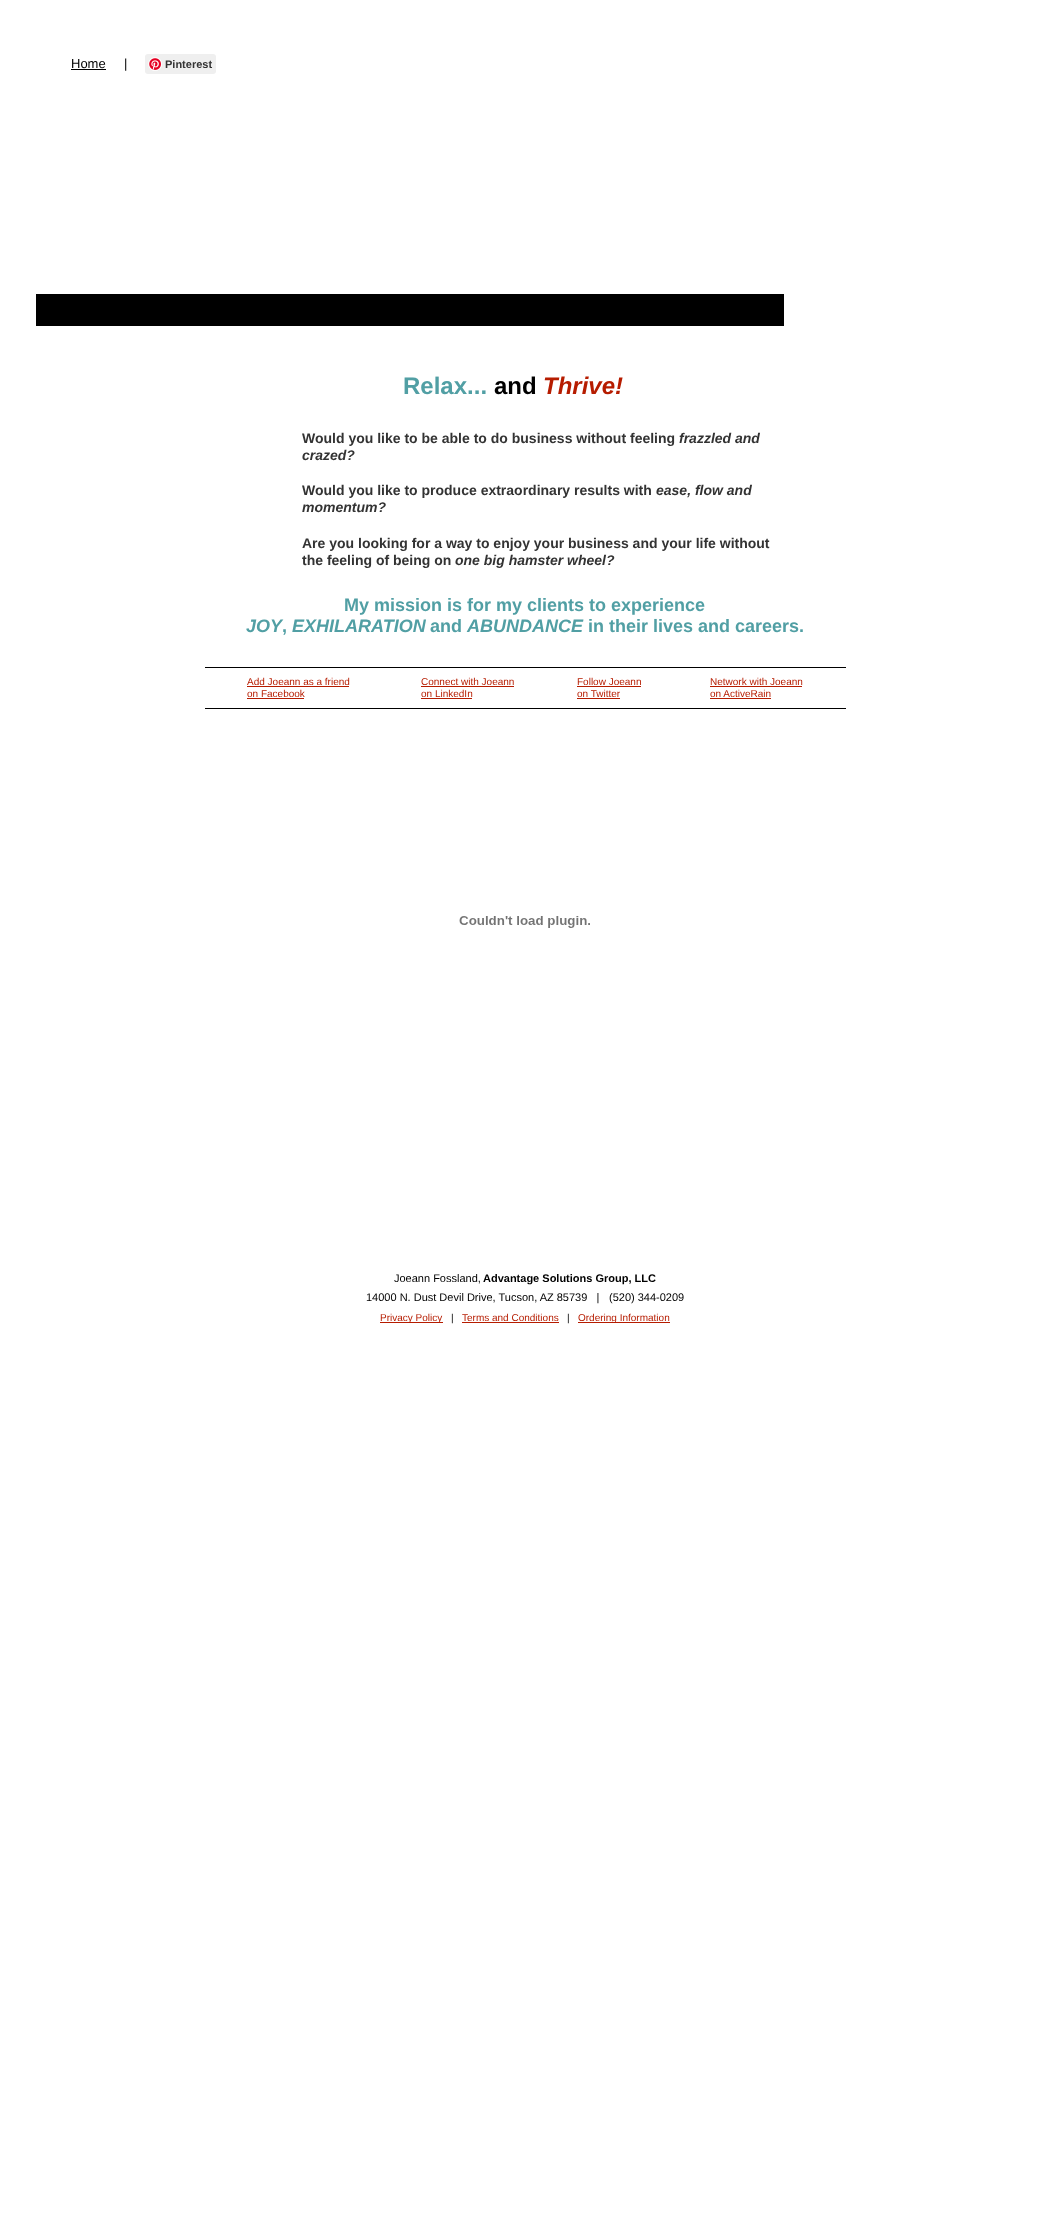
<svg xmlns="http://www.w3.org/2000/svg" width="1040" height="2237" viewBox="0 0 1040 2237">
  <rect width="100%" height="100%" fill="rgb(255,255,255)"/>
  <text x="71" y="68" font-family="Liberation Sans" font-size="13" fill="rgb(0,0,0)">Home</text>
  <rect x="71" y="69" width="35" height="1" fill="rgb(0,0,0)"/>
  <text x="124" y="68" font-family="Liberation Sans" font-size="13" fill="rgb(0,0,0)">|</text>
  <rect x="145" y="54" width="71" height="20" rx="3" fill="rgb(239,239,239)"/>
  <image x="148" y="57" width="14" height="14" href="pic1.png"/>
  <text x="165" y="68" font-family="Liberation Sans" font-size="11" font-weight="bold" fill="rgb(51,51,51)">Pinterest</text>
  <rect x="36" y="294" width="748" height="32" fill="rgb(0,0,0)"/>
  <text x="403" y="394" font-family="Liberation Sans" font-size="24" font-weight="bold" fill="rgb(81,159,164)">Relax...</text>
  <text x="494" y="394" font-family="Liberation Sans" font-size="24" font-weight="bold" fill="rgb(0,0,0)">and</text>
  <text x="543" y="394" font-family="Liberation Sans" font-size="24" font-weight="bold" font-style="italic" fill="rgb(182,28,0)">Thrive!</text>
  <text x="302" y="443" font-family="Liberation Sans" font-size="14" font-weight="bold" fill="rgb(51,51,51)">Would you like to be able to do business without feeling</text>
  <g font-family="Liberation Sans" font-size="14" font-weight="bold" font-style="italic" fill="rgb(51,51,51)">
    <text x="679" y="443">frazzled and</text>
    <text x="302" y="460">crazed?</text>
  </g>
  <text x="302" y="495" font-family="Liberation Sans" font-size="14" font-weight="bold" fill="rgb(51,51,51)">Would you like to produce extraordinary results with</text>
  <g font-family="Liberation Sans" font-size="14" font-weight="bold" font-style="italic" fill="rgb(51,51,51)">
    <text x="656" y="495">ease, flow and</text>
    <text x="302" y="512">momentum?</text>
  </g>
  <g font-family="Liberation Sans" font-size="14" font-weight="bold" fill="rgb(51,51,51)">
    <text>
      <tspan x="302" y="548">Are you looking for a way to enjoy your business and your life without</tspan>
      <tspan x="302" y="565">the feeling of being on</tspan>
    </text>
  </g>
  <text x="455" y="565" font-family="Liberation Sans" font-size="14" font-weight="bold" font-style="italic" fill="rgb(51,51,51)">one big hamster wheel?</text>
  <text x="344" y="611" font-family="Liberation Sans" font-size="18" font-weight="bold" fill="rgb(81,159,164)">My mission is for my clients to experience</text>
  <text x="246" y="632" font-family="Liberation Sans" font-size="18" font-weight="bold" font-style="italic" fill="rgb(81,159,164)">JOY</text>
  <text x="282" y="632" font-family="Liberation Sans" font-size="18" font-weight="bold" fill="rgb(81,159,164)">,</text>
  <text x="292" y="632" font-family="Liberation Sans" font-size="18" font-weight="bold" font-style="italic" fill="rgb(81,159,164)">EXHILARATION</text>
  <text x="430" y="632" font-family="Liberation Sans" font-size="18" font-weight="bold" fill="rgb(81,159,164)">and</text>
  <text x="467" y="632" font-family="Liberation Sans" font-size="18" font-weight="bold" font-style="italic" fill="rgb(81,159,164)">ABUNDANCE</text>
  <text x="588" y="632" font-family="Liberation Sans" font-size="18" font-weight="bold" fill="rgb(81,159,164)">in their lives and careers.</text>
  <rect x="205" y="667" width="641" height="1" fill="rgb(0,0,0)"/>
  <text x="247" y="685" font-family="Liberation Sans" font-size="10" fill="rgb(182,28,0)">Add Joeann as a friend</text>
  <rect x="247" y="686" width="102" height="1" fill="rgb(182,28,0)"/>
  <text x="247" y="697" font-family="Liberation Sans" font-size="10" fill="rgb(182,28,0)">on Facebook</text>
  <rect x="247" y="698" width="57" height="1" fill="rgb(182,28,0)"/>
  <text x="421" y="685" font-family="Liberation Sans" font-size="10" fill="rgb(182,28,0)">Connect with Joeann</text>
  <rect x="421" y="686" width="93" height="1" fill="rgb(182,28,0)"/>
  <text x="421" y="697" font-family="Liberation Sans" font-size="10" fill="rgb(182,28,0)">on LinkedIn</text>
  <rect x="421" y="698" width="51" height="1" fill="rgb(182,28,0)"/>
  <text x="577" y="685" font-family="Liberation Sans" font-size="10" fill="rgb(182,28,0)">Follow Joeann</text>
  <rect x="577" y="686" width="64" height="1" fill="rgb(182,28,0)"/>
  <text x="577" y="697" font-family="Liberation Sans" font-size="10" fill="rgb(182,28,0)">on Twitter</text>
  <rect x="577" y="698" width="43" height="1" fill="rgb(182,28,0)"/>
  <text x="710" y="685" font-family="Liberation Sans" font-size="10" fill="rgb(182,28,0)">Network with Joeann</text>
  <rect x="710" y="686" width="92" height="1" fill="rgb(182,28,0)"/>
  <text x="710" y="697" font-family="Liberation Sans" font-size="10" fill="rgb(182,28,0)">on ActiveRain</text>
  <rect x="710" y="698" width="61" height="1" fill="rgb(182,28,0)"/>
  <rect x="205" y="708" width="641" height="1" fill="rgb(0,0,0)"/>
  <image x="459" y="916" width="131" height="12" href="pic2.png"/>
  <text x="394" y="1282" font-family="Liberation Sans" font-size="11" fill="rgb(0,0,0)">Joeann Fossland,</text>
  <text x="483" y="1282" font-family="Liberation Sans" font-size="11" font-weight="bold" fill="rgb(0,0,0)">Advantage Solutions Group, LLC</text>
  <g font-family="Liberation Sans" font-size="11" fill="rgb(0,0,0)">
    <text x="366" y="1301" xml:space="preserve">14000 N. Dust Devil Drive, Tucson, AZ 85739   |</text>
    <text x="609" y="1301">(520) 344-0209</text>
  </g>
  <rect x="380" y="1322" width="63" height="1" fill="rgb(182,28,0)"/>
  <text x="380" y="1321" font-family="Liberation Sans" font-size="10" fill="rgb(182,28,0)">Privacy Policy</text>
  <text x="451" y="1321" font-family="Liberation Sans" font-size="10" fill="rgb(0,0,0)">|</text>
  <text x="462" y="1321" font-family="Liberation Sans" font-size="10" fill="rgb(182,28,0)">Terms and Conditions</text>
  <rect x="462" y="1322" width="97" height="1" fill="rgb(182,28,0)"/>
  <text x="567" y="1321" font-family="Liberation Sans" font-size="10" fill="rgb(0,0,0)">|</text>
  <rect x="578" y="1322" width="92" height="1" fill="rgb(182,28,0)"/>
  <text x="578" y="1321" font-family="Liberation Sans" font-size="10" fill="rgb(182,28,0)">Ordering Information</text>
</svg>
